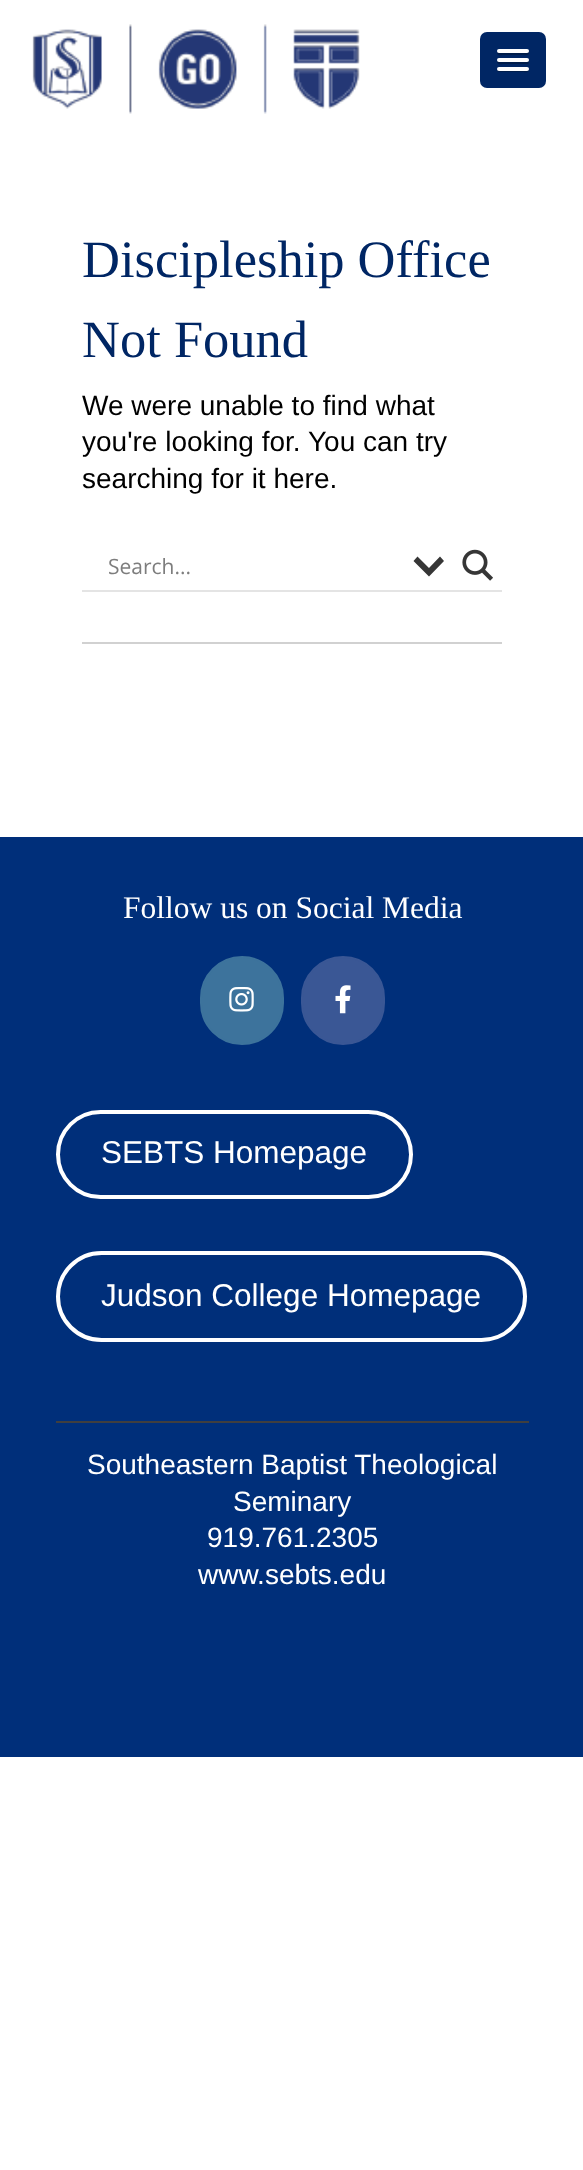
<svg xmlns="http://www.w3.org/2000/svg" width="583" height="2170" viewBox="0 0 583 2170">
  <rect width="100%" height="100%" fill="rgb(255,255,255)"/>
  <image x="32" y="24" width="328" height="90" href="pic1.png"/>
  <rect x="480" y="32" width="66" height="56" rx="7" fill="rgb(0,38,100)"/>
  <path d="M497.5 52L497 53.5C497.5 56 502.5 55 503.5 55H522.5C524 55 529 56 529 53L528.5 51.5C528 52 527.5 52.5 527 52.5H498.5Z" fill="rgb(0,29,75)"/>
  <rect x="497" y="49" width="32" height="4" rx="2" fill="rgb(255,255,255)"/>
  <path d="M497.5 60.5C497 61 497 62 497 62.5C497.5 65 502.5 64 503.5 64H527C529 64 529.5 61.5 528 60.5L527 61H498.5Z" fill="rgb(0,29,75)"/>
  <rect x="497" y="58" width="32" height="4" rx="2" fill="rgb(255,255,255)"/>
  <path d="M497 69C495.5 73 503 72 503.5 72H522.5C523.5 72 528.5 73 529 70.5C529 70 529 69 528.5 68.5C528.5 69.5 527.5 70 527 70H499C498 70 497.5 69.5 497 69Z" fill="rgb(0,29,75)"/>
  <rect x="497" y="67" width="32" height="4" rx="2" fill="rgb(255,255,255)"/>
  <g font-family="Liberation Serif" font-size="52.5" fill="rgb(0,38,100)">
    <text>
      <tspan x="82" y="277">Discipleship Office</tspan>
      <tspan x="82" y="357">Not Found</tspan>
    </text>
  </g>
  <g font-family="Liberation Sans" font-size="28" fill="rgb(0,0,0)">
    <text>
      <tspan x="82" y="415">We were unable to find what</tspan>
      <tspan x="82" y="451">you're looking for.</tspan>
    </text>
    <text x="308" y="451">You can try</text>
    <text x="82" y="488">searching for it here.</text>
  </g>
  <path d="M82 543V592H502V590H82Z" fill="rgb(228,228,228)"/>
  <text x="108" y="574" font-family="Open Sans" font-size="21" fill="rgb(125,125,125)">Search...</text>
  <path d="M440 556.5L444 561L429 576.5L413.5 561L417.5 556.5L429 568Z" fill="rgb(54,54,54)"/>
  <image x="462" y="549" width="31" height="32" href="pic2.png"/>
  <rect x="82" y="642" width="420" height="2" fill="rgb(209,209,209)"/>
  <rect x="0" y="837" width="583" height="920" fill="rgb(0,47,122)"/>
  <rect x="56" y="1421" width="473" height="2" fill="rgb(64,63,63)"/>
  <text x="123" y="918" font-family="Liberation Serif" font-size="31.5" fill="rgb(255,255,255)">Follow us on Social Media</text>
  <rect x="201" y="957" width="82" height="87" rx="41" fill="rgb(61,115,156)" stroke="rgb(61,115,156)" stroke-width="2"/>
  <image x="229" y="987" width="25" height="25" href="pic3.png"/>
  <rect x="302" y="957" width="82" height="87" rx="41" fill="rgb(58,87,149)" stroke="rgb(58,87,149)" stroke-width="2"/>
  <image x="335" y="985" width="16" height="29" href="pic4.png"/>
  <rect x="58" y="1112" width="353" height="85" rx="42.5" fill="none" stroke="rgb(255,255,255)" stroke-width="4"/>
  <text x="101" y="1163" font-family="Liberation Sans" font-size="31.5" fill="rgb(255,255,255)">SEBTS Homepage</text>
  <rect x="58" y="1253" width="467" height="87" rx="43.5" fill="none" stroke="rgb(255,255,255)" stroke-width="4"/>
  <text x="101" y="1306" font-family="Liberation Sans" font-size="31.5" fill="rgb(255,255,255)">Judson College Homepage</text>
  <g font-family="Liberation Sans" font-size="28" fill="rgb(255,255,255)">
    <text x="87" y="1474">Southeastern Baptist Theological</text>
    <text x="233" y="1511">Seminary</text>
    <text x="207" y="1547">919.761.2305</text>
    <text x="198" y="1584">www.sebts.edu</text>
  </g>
</svg>
